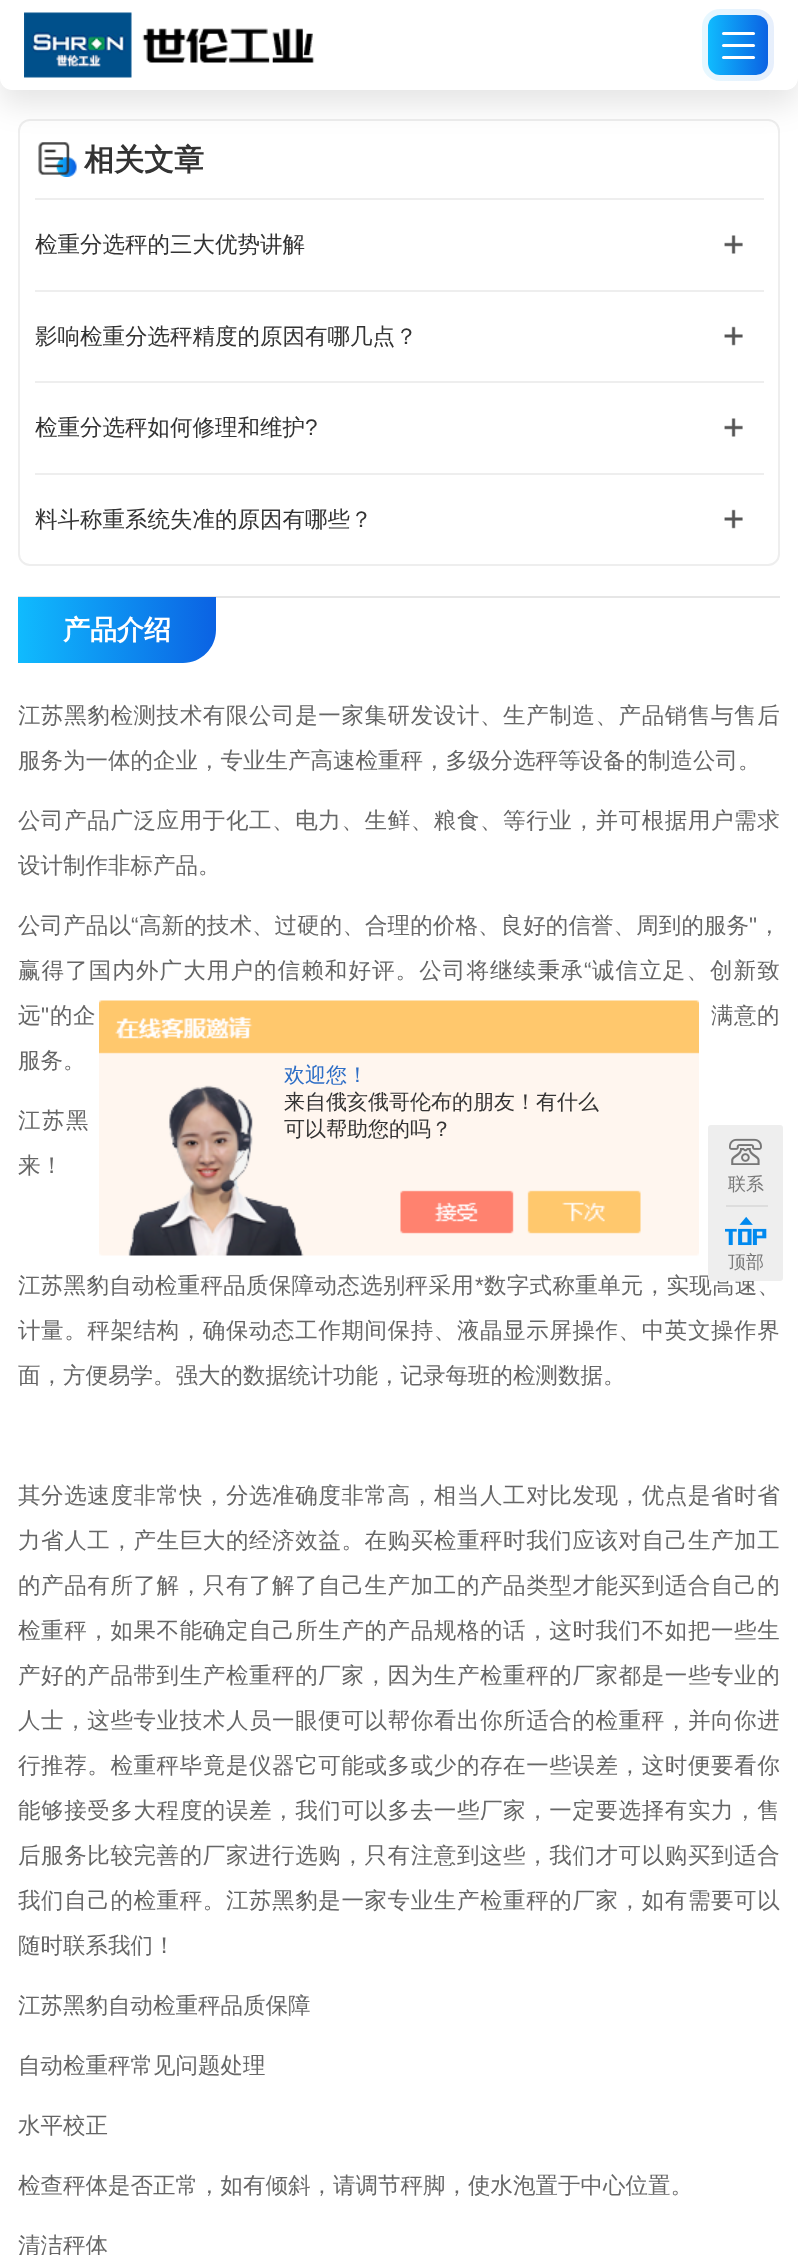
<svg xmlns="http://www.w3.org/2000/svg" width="798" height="2255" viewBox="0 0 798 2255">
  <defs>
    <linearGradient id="g1" gradientUnits="userSpaceOnUse" x1="702" y1="45" x2="774" y2="45"><stop offset="0" stop-color="rgb(231,248,255)"/><stop offset="1" stop-color="rgb(231,239,252)"/></linearGradient>
    <linearGradient id="g2" gradientUnits="userSpaceOnUse" x1="708" y1="45" x2="768" y2="45"><stop offset="0" stop-color="rgb(16,187,254)"/><stop offset="1" stop-color="rgb(11,98,227)"/></linearGradient>
    <linearGradient id="g3" gradientUnits="userSpaceOnUse" x1="18" y1="630" x2="216" y2="630"><stop offset="0" stop-color="rgb(16,187,254)"/><stop offset="1" stop-color="rgb(11,98,227)"/></linearGradient>
  </defs>
  <rect width="100%" height="100%" fill="rgb(255,255,255)"/>
  <rect x="19" y="120" width="760" height="445" rx="11" fill="none" stroke="rgb(238,238,238)" stroke-width="2"/>
  <image x="38" y="142" width="39" height="35" href="pic2.png"/>
  <rect x="0" y="15" width="798" height="90" rx="12" fill="rgba(0,0,0,0.1)" filter="blur(15px)"/>
  <path d="M0 0H798V78C798 84.5 792.5 90 786 90H12C5.5 90 0 84.5 0 78Z" fill="rgb(255,255,255)"/>
  <image x="24" y="12" width="291" height="66" href="pic1.png"/>
  <rect x="702" y="9" width="72" height="72" rx="18" fill="url(#g1)"/>
  <rect x="708" y="15" width="60" height="60" rx="12" fill="url(#g2)"/>
  <rect x="722" y="32" width="33" height="3" rx="1.5" fill="rgb(255,255,255)"/>
  <rect x="722" y="44" width="33" height="3" rx="1.5" fill="rgb(255,255,255)"/>
  <rect x="722" y="56" width="33" height="3" rx="1.5" fill="rgb(255,255,255)"/>
  <text x="84" y="170" font-family="WenQuanYi Zen Hei" font-size="30" font-weight="bold" fill="rgb(51,51,51)">相关文章</text>
  <rect x="35" y="198" width="729" height="2" fill="rgb(238,238,238)"/>
  <text x="35" y="252" font-family="WenQuanYi Zen Hei" font-size="22.5" font-weight="500" fill="rgb(51,51,51)">检重分选秤的三大优势讲解</text>
  <image x="724" y="235" width="19" height="19" href="pic3.png"/>
  <rect x="35" y="290" width="729" height="2" fill="rgb(238,238,238)"/>
  <text x="35" y="344" font-family="WenQuanYi Zen Hei" font-size="22.5" font-weight="500" fill="rgb(51,51,51)">影响检重分选秤精度的原因有哪几点？</text>
  <image x="724" y="326" width="19" height="20" href="pic4.png"/>
  <rect x="35" y="381" width="729" height="2" fill="rgb(238,238,238)"/>
  <text x="35" y="435" font-family="WenQuanYi Zen Hei" font-size="22.5" font-weight="500" fill="rgb(51,51,51)">检重分选秤如何修理和维护</text>
  <text x="305" y="435" font-family="Liberation Sans" font-size="22.5" fill="rgb(51,51,51)">?</text>
  <image x="724" y="418" width="19" height="19" href="pic3.png"/>
  <rect x="35" y="473" width="729" height="2" fill="rgb(238,238,238)"/>
  <text x="35" y="527" font-family="WenQuanYi Zen Hei" font-size="22.5" font-weight="500" fill="rgb(51,51,51)">料斗称重系统失准的原因有哪些？</text>
  <image x="724" y="509" width="19" height="20" href="pic4.png"/>
  <rect x="18" y="596" width="762" height="2" fill="rgb(230,230,230)"/>
  <path d="M18 597H216V630C216 648 201 663 183 663H18Z" fill="url(#g3)"/>
  <text x="63" y="639" font-family="WenQuanYi Zen Hei" font-size="27" font-weight="bold" fill="rgb(255,255,255)">产品介绍</text>
  <text x="18" y="723" font-family="WenQuanYi Zen Hei" font-size="22.5" font-weight="500" letter-spacing="0.6" fill="rgb(102,102,102)">江苏黑豹检测技术有限公司是一家集研发设计、生产制造、产品销售与售后</text>
  <text x="18" y="768" font-family="WenQuanYi Zen Hei" font-size="22.5" font-weight="500" fill="rgb(102,102,102)">服务为一体的企业，专业生产高速检重秤，多级分选秤等设备的制造公司。</text>
  <text x="18" y="828" font-family="WenQuanYi Zen Hei" font-size="22.5" font-weight="500" letter-spacing="0.6" fill="rgb(102,102,102)">公司产品广泛应用于化工、电力、生鲜、粮食、等行业，并可根据用户需求</text>
  <text x="18" y="873" font-family="WenQuanYi Zen Hei" font-size="22.5" font-weight="500" fill="rgb(102,102,102)">设计制作非标产品。</text>
  <text x="18" y="933" font-family="WenQuanYi Zen Hei" font-size="22.5" font-weight="500" letter-spacing="0.1" fill="rgb(102,102,102)">公司产品以</text>
  <text x="131" y="933" font-family="Liberation Sans" font-size="22.5" letter-spacing="0.1" fill="rgb(102,102,102)">“</text>
  <text x="139" y="933" font-family="WenQuanYi Zen Hei" font-size="22.5" font-weight="500" letter-spacing="0.1" fill="rgb(102,102,102)">高新的技术、过硬的、合理的价格、良好的信誉、周到的服务</text>
  <text x="749" y="933" font-family="Liberation Sans" font-size="22.5" letter-spacing="0.1" fill="rgb(102,102,102)">"</text>
  <text x="758" y="933" font-family="WenQuanYi Zen Hei" font-size="22.5" font-weight="500" letter-spacing="0.1" fill="rgb(102,102,102)">，</text>
  <text x="18" y="978" font-family="WenQuanYi Zen Hei" font-size="22.5" font-weight="500" letter-spacing="1.1" fill="rgb(102,102,102)">赢得了国内外广大用户的信赖和好评。公司将继续秉承</text>
  <text x="584" y="978" font-family="Liberation Sans" font-size="22.5" letter-spacing="1.1" fill="rgb(102,102,102)">“</text>
  <text x="592" y="978" font-family="WenQuanYi Zen Hei" font-size="22.5" font-weight="500" letter-spacing="1.1" fill="rgb(102,102,102)">诚信立足、创新致</text>
  <text x="18" y="1023" font-family="WenQuanYi Zen Hei" font-size="22.5" font-weight="500" letter-spacing="0.5" fill="rgb(102,102,102)">远</text>
  <text x="41" y="1023" font-family="Liberation Sans" font-size="22.5" letter-spacing="0.5" fill="rgb(102,102,102)">"</text>
  <g font-family="WenQuanYi Zen Hei" font-size="22.5" font-weight="500" letter-spacing="0.5" fill="rgb(102,102,102)">
    <text x="50" y="1023">的企</text>
    <text x="711" y="1023">满意的</text>
  </g>
  <text x="18" y="1068" font-family="WenQuanYi Zen Hei" font-size="22.5" font-weight="500" fill="rgb(102,102,102)">服务。</text>
  <text x="18" y="1128" font-family="WenQuanYi Zen Hei" font-size="22.5" font-weight="500" letter-spacing="1.5" fill="rgb(102,102,102)">江苏黑</text>
  <text x="18" y="1173" font-family="WenQuanYi Zen Hei" font-size="22.5" font-weight="500" fill="rgb(102,102,102)">来！</text>
  <text x="18" y="1293" font-family="WenQuanYi Zen Hei" font-size="22.5" font-weight="500" letter-spacing="0.3" fill="rgb(102,102,102)">江苏黑豹自动检重秤品质保障动态选别秤采用</text>
  <text x="475" y="1293" font-family="Liberation Sans" font-size="22.5" letter-spacing="0.3" fill="rgb(102,102,102)">*</text>
  <text x="484" y="1293" font-family="WenQuanYi Zen Hei" font-size="22.5" font-weight="500" letter-spacing="0.3" fill="rgb(102,102,102)">数字式称重单元，实现高速、</text>
  <text x="18" y="1338" font-family="WenQuanYi Zen Hei" font-size="22.5" font-weight="500" letter-spacing="0.6" fill="rgb(102,102,102)">计量。秤架结构，确保动态工作期间保持、液晶显示屏操作、中英文操作界</text>
  <text x="18" y="1383" font-family="WenQuanYi Zen Hei" font-size="22.5" font-weight="500" fill="rgb(102,102,102)">面，方便易学。强大的数据统计功能，记录每班的检测数据。</text>
  <g font-family="WenQuanYi Zen Hei" font-size="22.5" font-weight="500" letter-spacing="0.6" fill="rgb(102,102,102)">
    <text x="18" y="1503">其分选速度非常快，分选准确度非常高，相当人工对比发现，优点是省时省</text>
    <text x="18" y="1548">力省人工，产生巨大的经济效益。在购买检重秤时我们应该对自己生产加工</text>
    <text x="18" y="1593">的产品有所了解，只有了解了自己生产加工的产品类型才能买到适合自己的</text>
    <text x="18" y="1638">检重秤，如果不能确定自己所生产的产品规格的话，这时我们不如把一些生</text>
    <text x="18" y="1683">产好的产品带到生产检重秤的厂家，因为生产检重秤的厂家都是一些专业的</text>
    <text x="18" y="1728">人士，这些专业技术人员一眼便可以帮你看出你所适合的检重秤，并向你进</text>
    <text x="18" y="1773">行推荐。检重秤毕竟是仪器它可能或多或少的存在一些误差，这时便要看你</text>
    <text x="18" y="1818">能够接受多大程度的误差，我们可以多去一些厂家，一定要选择有实力，售</text>
    <text x="18" y="1863">后服务比较完善的厂家进行选购，只有注意到这些，我们才可以购买到适合</text>
    <text x="18" y="1908">我们自己的检重秤。江苏黑豹是一家专业生产检重秤的厂家，如有需要可以</text>
  </g>
  <g font-family="WenQuanYi Zen Hei" font-size="22.5" font-weight="500" fill="rgb(102,102,102)">
    <text x="18" y="1953">随时联系我们！</text>
    <text x="18" y="2013">江苏黑豹自动检重秤品质保障</text>
    <text x="18" y="2073">自动检重秤常见问题处理</text>
    <text x="18" y="2133">水平校正</text>
    <text x="18" y="2193">检查秤体是否正常，如有倾斜，请调节秤脚，使水泡置于中心位置。</text>
    <text x="18" y="2253">清洁秤体</text>
  </g>
  <image x="99" y="1000" width="600" height="256" href="pic5.png"/>
  <text x="284" y="1082" font-family="WenQuanYi Zen Hei" font-size="21" font-weight="500" fill="rgb(46,110,198)">欢迎您！</text>
  <g font-family="WenQuanYi Zen Hei" font-size="21" font-weight="500" fill="rgb(51,51,51)">
    <text>
      <tspan x="284" y="1109">来自俄亥俄哥伦布的朋友！有什么</tspan>
      <tspan x="284" y="1136">可以帮助您的吗？</tspan>
    </text>
  </g>
  <rect x="708" y="1125" width="75" height="156" rx="3" fill="rgb(238,238,238)"/>
  <image x="729" y="1138" width="33" height="27" href="pic6.png"/>
  <text x="728" y="1190" font-family="WenQuanYi Zen Hei" font-size="18" font-weight="500" fill="rgb(119,119,119)">联系</text>
  <rect x="726" y="1205" width="42" height="2" fill="rgb(221,221,221)"/>
  <image x="725" y="1216" width="42" height="30" href="pic7.png"/>
  <text x="728" y="1268" font-family="WenQuanYi Zen Hei" font-size="18" font-weight="500" fill="rgb(119,119,119)">顶部</text>
</svg>
